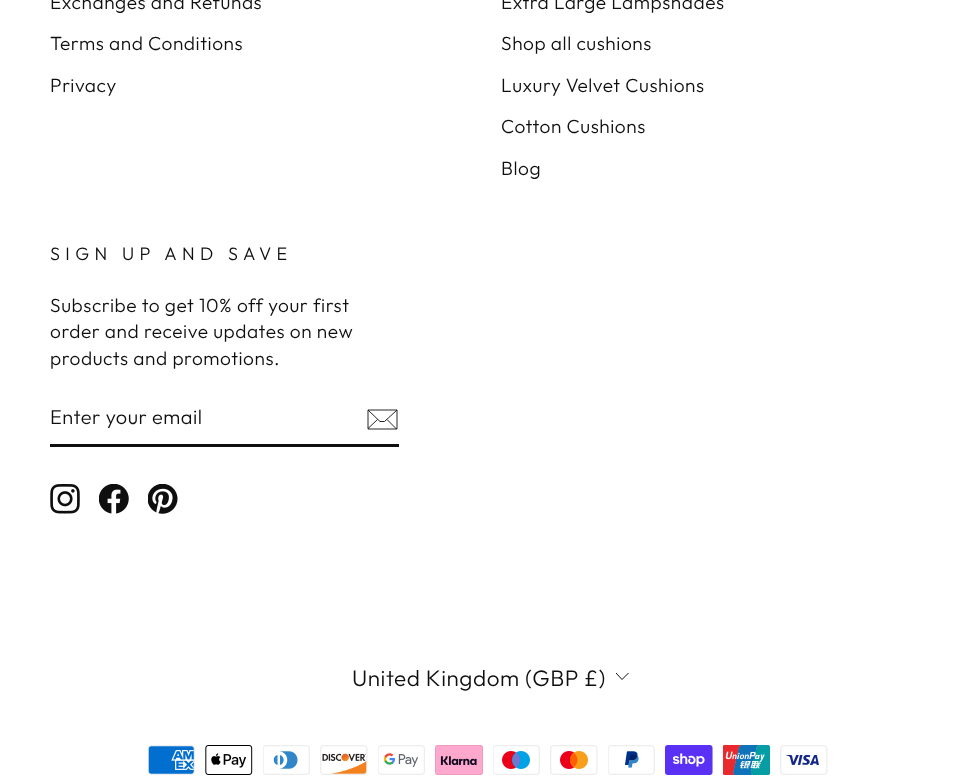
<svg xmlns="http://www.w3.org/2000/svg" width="973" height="782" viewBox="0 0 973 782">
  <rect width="100%" height="100%" fill="rgb(255,255,255)"/>
  <g font-family="Outfit" font-size="19.1" font-weight="300" letter-spacing="0.55" fill="rgb(15,15,15)">
    <text x="50" y="9">Exchanges and Refunds</text>
    <text x="50" y="50">Terms and Conditions</text>
    <text x="50" y="92">Privacy</text>
    <text x="501" y="9">Extra Large Lampshades</text>
    <text x="501" y="50">Shop all cushions</text>
    <text x="501" y="92">Luxury Velvet Cushions</text>
    <text x="501" y="133">Cotton Cushions</text>
    <text x="501" y="175">Blog</text>
  </g>
  <text x="50" y="260" font-family="Outfit" font-size="18" font-weight="300" letter-spacing="5.4" fill="rgb(15,15,15)">SIGN UP AND SAVE</text>
  <g font-family="Outfit" font-size="19.1" font-weight="300" letter-spacing="0.55" fill="rgb(15,15,15)">
    <text>
      <tspan x="50" y="312">Subscribe to get 10% off your first</tspan>
      <tspan x="50" y="338">order and receive updates on new</tspan>
      <tspan x="50" y="365">products and promotions.</tspan>
    </text>
  </g>
  <rect x="50" y="444" width="349" height="3" fill="rgb(15,15,15)"/>
  <text x="50" y="424" font-family="Outfit" font-size="20" font-weight="300" letter-spacing="0.5" fill="rgb(15,15,15)">Enter your email</text>
  <path d="M397 429H368V410H397ZM368 410L380 421.5H384.5L397 410M377.5 419.5L368 428.5M396.5 429L387 419.5" fill="none" stroke="rgb(15,15,15)" stroke-width="0.9"/>
  <image x="50" y="484" width="30" height="30" href="pic1.png"/>
  <image x="99" y="484" width="30" height="30" href="pic2.png"/>
  <image x="148" y="484" width="30" height="30" href="pic3.png"/>
  <text x="352" y="686" font-family="Outfit" font-size="22.5" font-weight="300" letter-spacing="0.55" fill="rgb(15,15,15)">United Kingdom (GBP £)</text>
  <path d="M616 673L622 679.5L628.5 673" fill="none" stroke="rgb(15,15,15)"/>
  <image x="148" y="745" width="47" height="30" href="pic4.png"/>
  <image x="205" y="745" width="48" height="30" href="pic5.png"/>
  <image x="263" y="745" width="47" height="30" href="pic6.png"/>
  <image x="320" y="745" width="48" height="30" href="pic7.png"/>
  <image x="378" y="745" width="47" height="30" href="pic8.png"/>
  <image x="435" y="745" width="48" height="30" href="pic9.png"/>
  <image x="493" y="745" width="47" height="30" href="pic10.png"/>
  <image x="550" y="745" width="48" height="30" href="pic11.png"/>
  <image x="608" y="745" width="47" height="30" href="pic12.png"/>
  <image x="665" y="745" width="48" height="30" href="pic13.png"/>
  <image x="723" y="745" width="47" height="30" href="pic14.png"/>
  <image x="780" y="745" width="48" height="30" href="pic15.png"/>
</svg>
